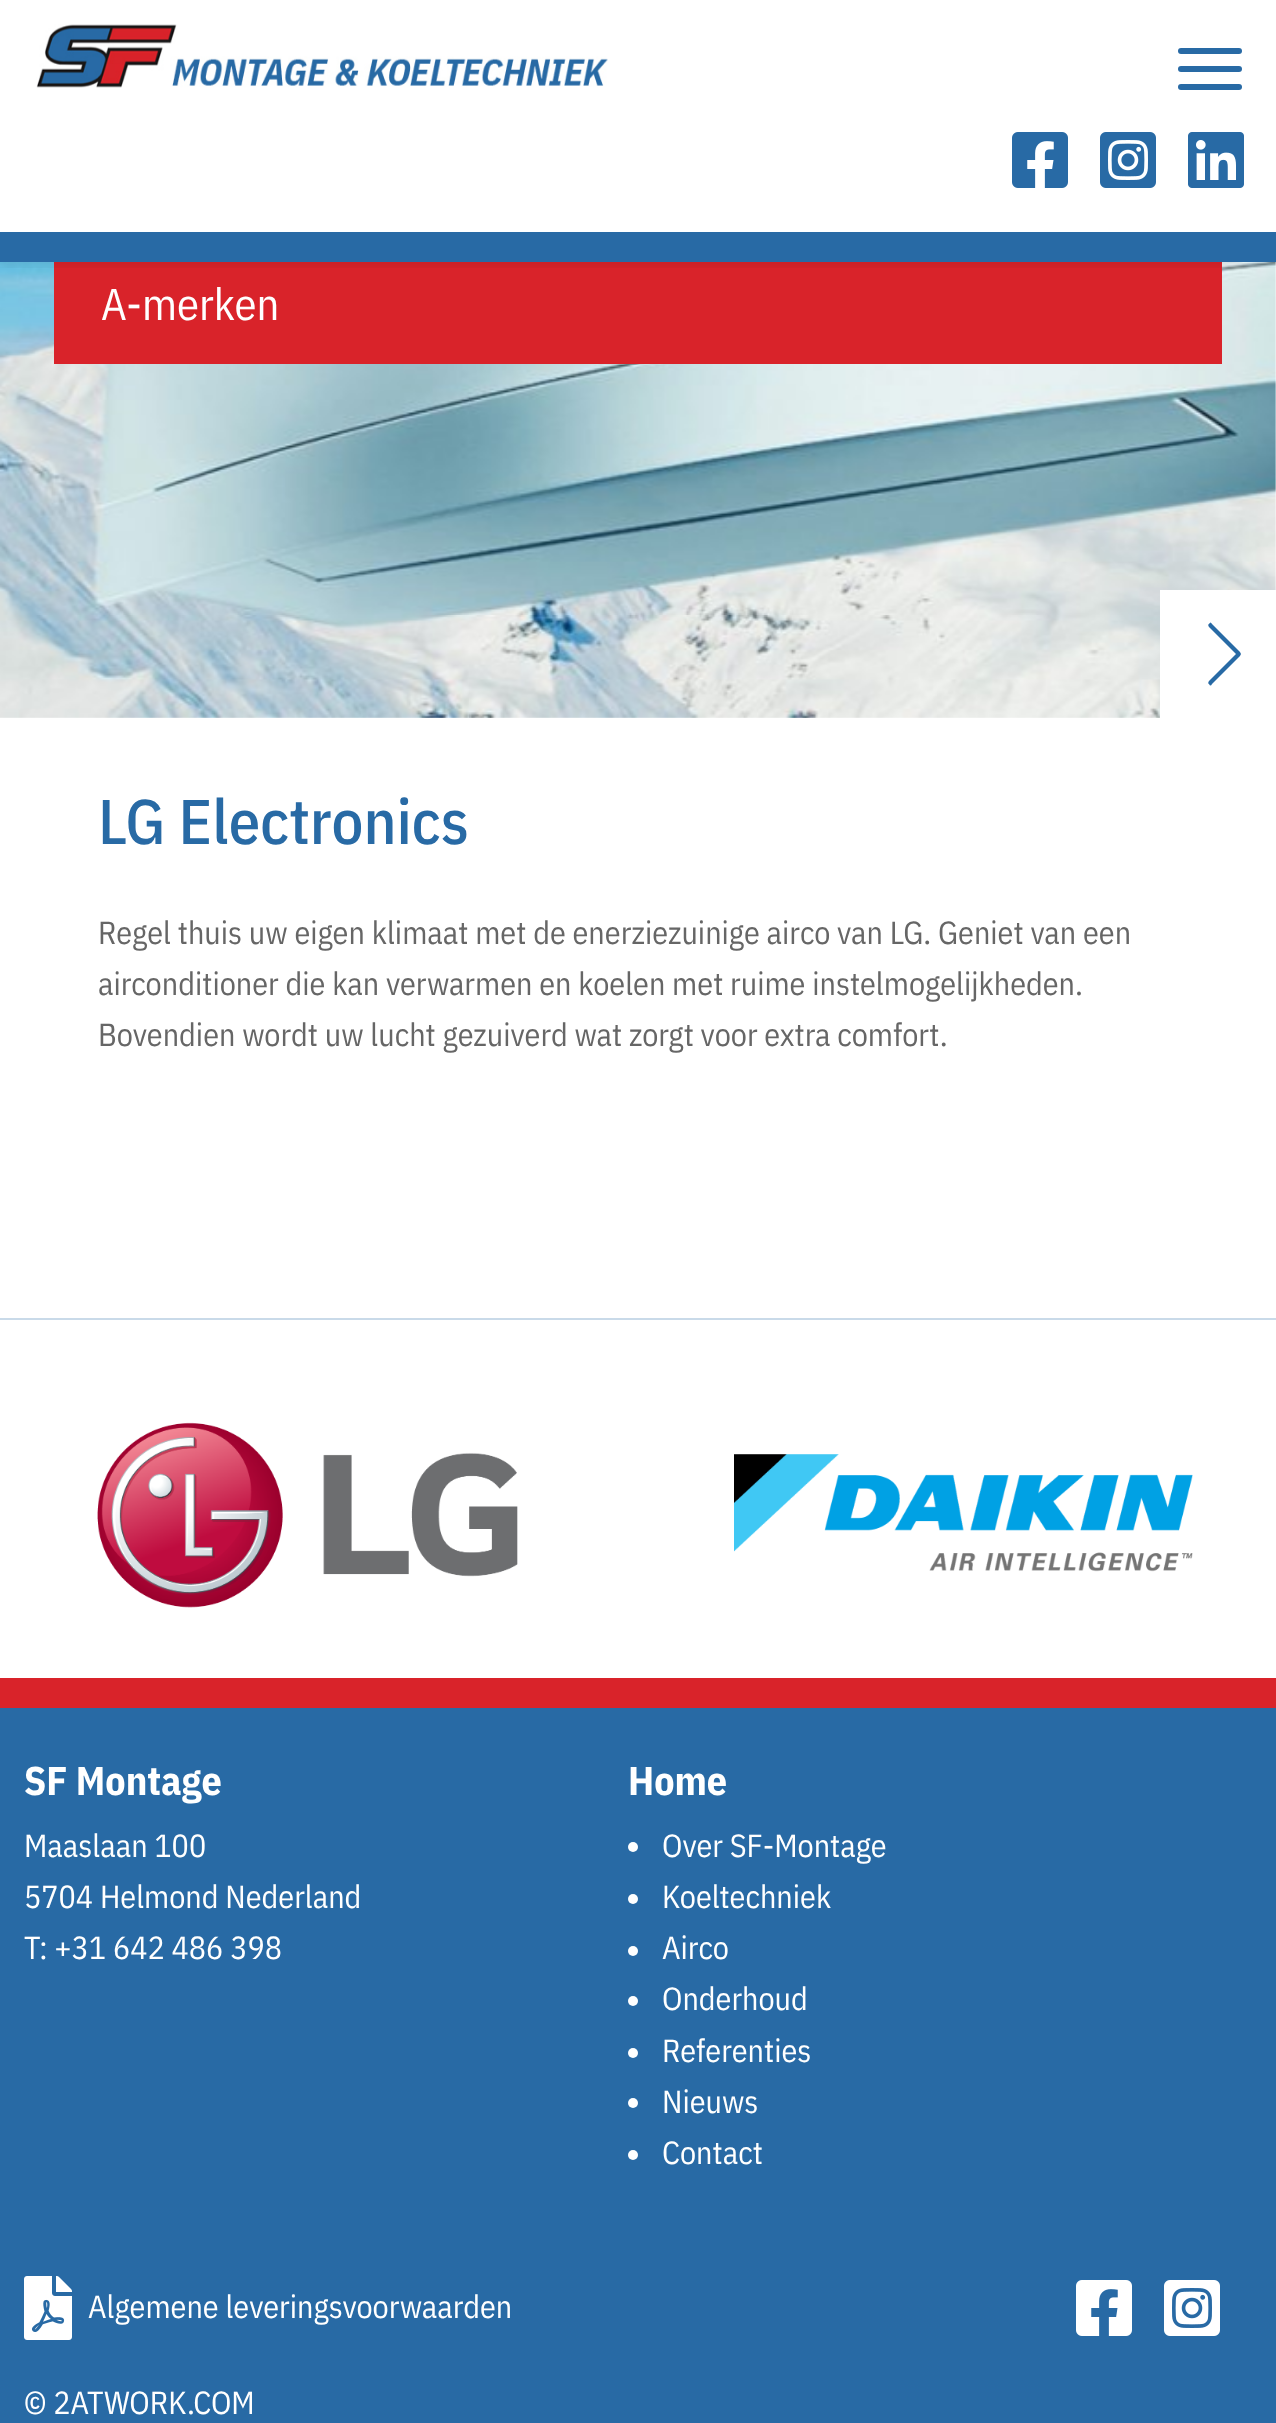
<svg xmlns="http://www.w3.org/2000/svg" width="1276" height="2423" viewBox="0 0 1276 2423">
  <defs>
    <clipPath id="clip1"><rect x="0" y="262" width="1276" height="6"/></clipPath>
  </defs>
  <rect width="100%" height="100%" fill="rgb(255,255,255)"/>
  <image x="0" y="262" width="1276" height="456" href="pic5.png"/>
  <rect x="54" y="262" width="1168" height="102" fill="rgb(217,35,42)"/>
  <g clip-path="url(#clip1)">
    <rect x="0" y="4" width="1276" height="262" fill="rgba(0,0,0,0.07)" filter="blur(4px)"/>
  </g>
  <rect x="0" y="232" width="1276" height="30" fill="rgb(40,106,165)"/>
  <image x="36" y="24" width="572" height="64" href="pic1.png"/>
  <image x="1012" y="132" width="56" height="56" href="pic2.png"/>
  <image x="1100" y="132" width="56" height="56" href="pic3.png"/>
  <image x="1188" y="132" width="56" height="56" href="pic4.png"/>
  <rect x="1178" y="48" width="64" height="6" rx="3" fill="rgb(40,106,165)"/>
  <rect x="1178" y="66" width="64" height="6" rx="3" fill="rgb(40,106,165)"/>
  <rect x="1178" y="84" width="64" height="6" rx="3" fill="rgb(40,106,165)"/>
  <text x="101" y="320" font-family="IBM Plex Sans Condensed" font-size="44.5" fill="rgb(255,255,255)">A-merken</text>
  <rect x="1160" y="590" width="116" height="128" fill="rgb(255,255,255)"/>
  <path d="M1209 684C1208 684 1208 682 1209 681L1236 654L1209 627C1208 626 1208 624 1209 624C1210 622 1211 622 1212 624L1240 652L1241 654L1240 656L1212 684C1211 686 1210 686 1209 684Z" fill="rgb(40,106,165)"/>
  <text x="98" y="844" font-family="IBM Plex Sans Condensed" font-size="63" font-weight="500" fill="rgb(40,106,165)">LG Electronics</text>
  <g font-family="IBM Plex Sans Condensed" font-size="32" fill="rgb(102,102,102)">
    <text>
      <tspan x="98" y="944">Regel thuis uw eigen klimaat met de enerziezuinige airco van LG. Geniet van een</tspan>
      <tspan x="98" y="995">airconditioner die kan verwarmen en koelen met ruime instelmogelijkheden.</tspan>
      <tspan x="98" y="1046">Bovendien wordt uw lucht gezuiverd wat zorgt voor extra comfort.</tspan>
    </text>
  </g>
  <rect x="0" y="1318" width="1276" height="2" fill="rgb(201,218,233)"/>
  <image x="97" y="1422" width="421" height="186" href="pic6.png"/>
  <image x="734" y="1454" width="459" height="118" href="pic7.png"/>
  <rect x="0" y="1708" width="1276" height="715" fill="rgb(40,106,165)"/>
  <rect x="0" y="1678" width="1276" height="30" fill="rgb(217,35,42)"/>
  <text x="24" y="1795" font-family="IBM Plex Sans Condensed" font-size="40" font-weight="bold" fill="rgb(255,255,255)">SF Montage</text>
  <g font-family="IBM Plex Sans Condensed" font-size="32" fill="rgb(255,255,255)">
    <text>
      <tspan x="24" y="1857">Maaslaan 100</tspan>
      <tspan x="24" y="1908">5704 Helmond Nederland</tspan>
      <tspan x="24" y="1959">T: +31 642 486 398</tspan>
    </text>
  </g>
  <text x="628" y="1795" font-family="IBM Plex Sans Condensed" font-size="40" font-weight="bold" fill="rgb(255,255,255)">Home</text>
  <circle cx="633" cy="1847" r="5" fill="rgb(255,255,255)"/>
  <text x="662" y="1857" font-family="IBM Plex Sans Condensed" font-size="32" fill="rgb(255,255,255)">Over SF-Montage</text>
  <circle cx="633" cy="1899" r="5" fill="rgb(255,255,255)"/>
  <text x="662" y="1908" font-family="IBM Plex Sans Condensed" font-size="32" fill="rgb(255,255,255)">Koeltechniek</text>
  <circle cx="633" cy="1951" r="5" fill="rgb(255,255,255)"/>
  <text x="662" y="1959" font-family="IBM Plex Sans Condensed" font-size="32" fill="rgb(255,255,255)">Airco</text>
  <circle cx="633" cy="2001" r="5" fill="rgb(255,255,255)"/>
  <text x="662" y="2010" font-family="IBM Plex Sans Condensed" font-size="32" fill="rgb(255,255,255)">Onderhoud</text>
  <circle cx="633" cy="2053" r="5" fill="rgb(255,255,255)"/>
  <text x="662" y="2062" font-family="IBM Plex Sans Condensed" font-size="32" fill="rgb(255,255,255)">Referenties</text>
  <circle cx="633" cy="2103" r="5" fill="rgb(255,255,255)"/>
  <text x="662" y="2113" font-family="IBM Plex Sans Condensed" font-size="32" fill="rgb(255,255,255)">Nieuws</text>
  <circle cx="633" cy="2155" r="5" fill="rgb(255,255,255)"/>
  <text x="662" y="2164" font-family="IBM Plex Sans Condensed" font-size="32" fill="rgb(255,255,255)">Contact</text>
  <image x="24" y="2276" width="48" height="64" href="pic8.png"/>
  <text x="88" y="2318" font-family="IBM Plex Sans Condensed" font-size="32" fill="rgb(255,255,255)">Algemene leveringsvoorwaarden</text>
  <image x="1076" y="2280" width="56" height="56" href="pic9.png"/>
  <image x="1164" y="2280" width="56" height="56" href="pic10.png"/>
  <text x="24" y="2414" font-family="IBM Plex Sans Condensed" font-size="32" fill="rgb(255,255,255)">© 2ATWORK.COM</text>
</svg>
